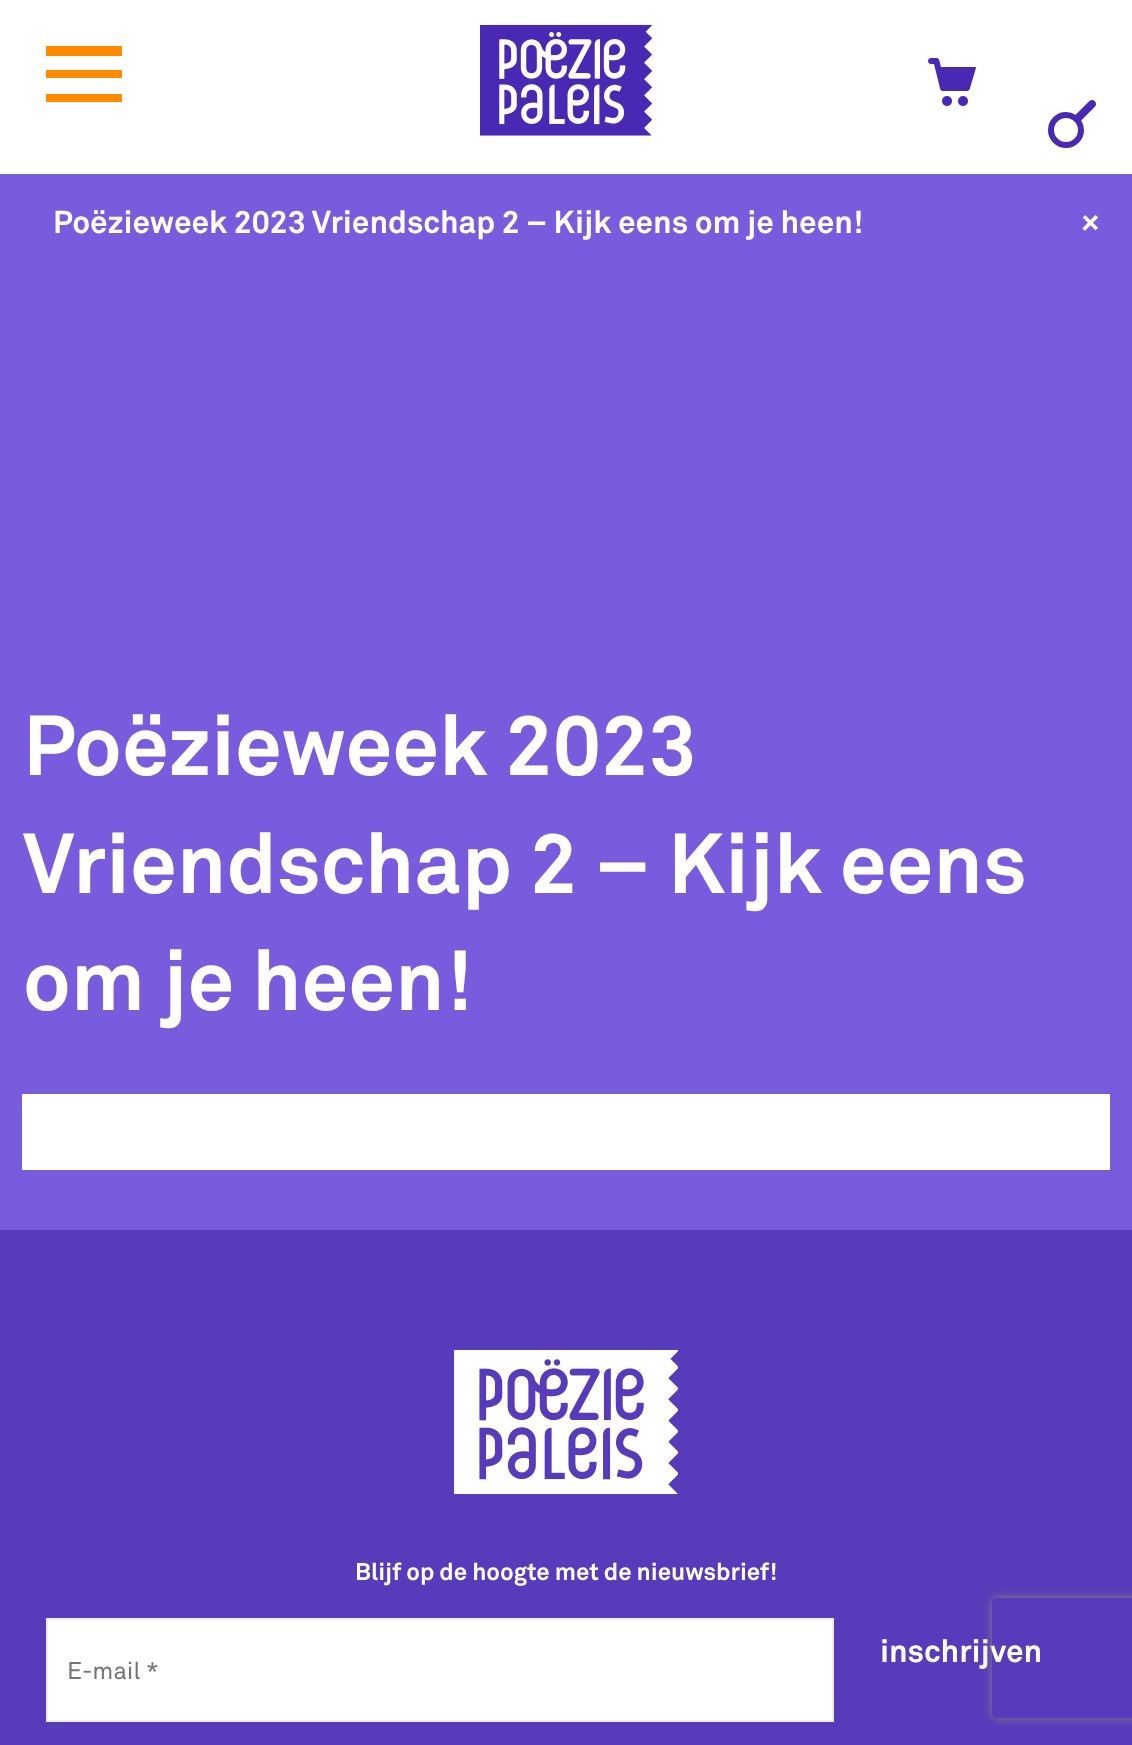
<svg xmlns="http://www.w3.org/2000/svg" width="1132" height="1745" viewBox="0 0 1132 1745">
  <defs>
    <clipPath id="clip1"><path d="M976 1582H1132V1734H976ZM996 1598H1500C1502 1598 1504 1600 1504 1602V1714C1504 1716 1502 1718 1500 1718H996C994 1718 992 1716 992 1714V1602C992 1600 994 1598 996 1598Z" clip-rule="evenodd"/></clipPath>
  </defs>
  <rect width="100%" height="100%" fill="rgb(121,91,221)"/>
  <rect x="0" y="0" width="1132" height="174" fill="rgb(255,255,255)"/>
  <rect x="46" y="46" width="76" height="10" fill="rgb(255,138,0)"/>
  <rect x="46" y="70" width="76" height="8" fill="rgb(255,138,0)"/>
  <rect x="46" y="94" width="76" height="8" fill="rgb(255,138,0)"/>
  <image x="480" y="24" width="172" height="112" href="pic1.png"/>
  <image x="928" y="58" width="48" height="48" href="pic2.png"/>
  <text x="1096" y="100" transform="rotate(180 1096 100)" font-family="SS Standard" font-size="48" fill="rgb(73,40,180)">🔎</text>
  <g font-family="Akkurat" font-size="31.5" font-weight="bold" fill="rgb(255,255,255)">
    <text x="53" y="233">Poëzieweek 2023 Vriendschap 2 – Kijk eens om je heen!</text>
    <text x="1076" y="222" transform="rotate(45 1076 222)">+</text>
  </g>
  <g font-family="Akkurat" font-size="84" font-weight="bold" fill="rgb(255,255,255)">
    <text>
      <tspan x="23" y="775">Poëzieweek 2023</tspan>
      <tspan x="23" y="893">Vriendschap 2 – Kijk eens</tspan>
      <tspan x="23" y="1010">om je heen!</tspan>
    </text>
  </g>
  <rect x="22" y="1094" width="1088" height="76" fill="rgb(255,255,255)"/>
  <rect x="0" y="1230" width="1132" height="515" fill="rgb(88,59,186)"/>
  <image x="454" y="1350" width="224" height="144" href="pic3.png"/>
  <text x="355" y="1580" font-family="Akkurat" font-size="24" font-weight="bold" fill="rgb(255,255,255)">Blijf op de hoogte met de nieuwsbrief!</text>
  <rect x="47" y="1619" width="786" height="102" fill="rgb(255,255,255)" stroke="rgb(239,239,239)" stroke-width="2"/>
  <text x="67" y="1679" font-family="Akkurat" font-size="24" fill="rgb(117,117,117)">E-mail *</text>
  <text x="880" y="1662" font-family="Akkurat" font-size="31.5" font-weight="bold" fill="rgb(255,255,255)">inschrijven</text>
  <g clip-path="url(#clip1)">
    <rect x="992" y="1598" width="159" height="120" rx="4" fill="rgb(128,128,128)" filter="blur(5px)"/>
  </g>
</svg>
